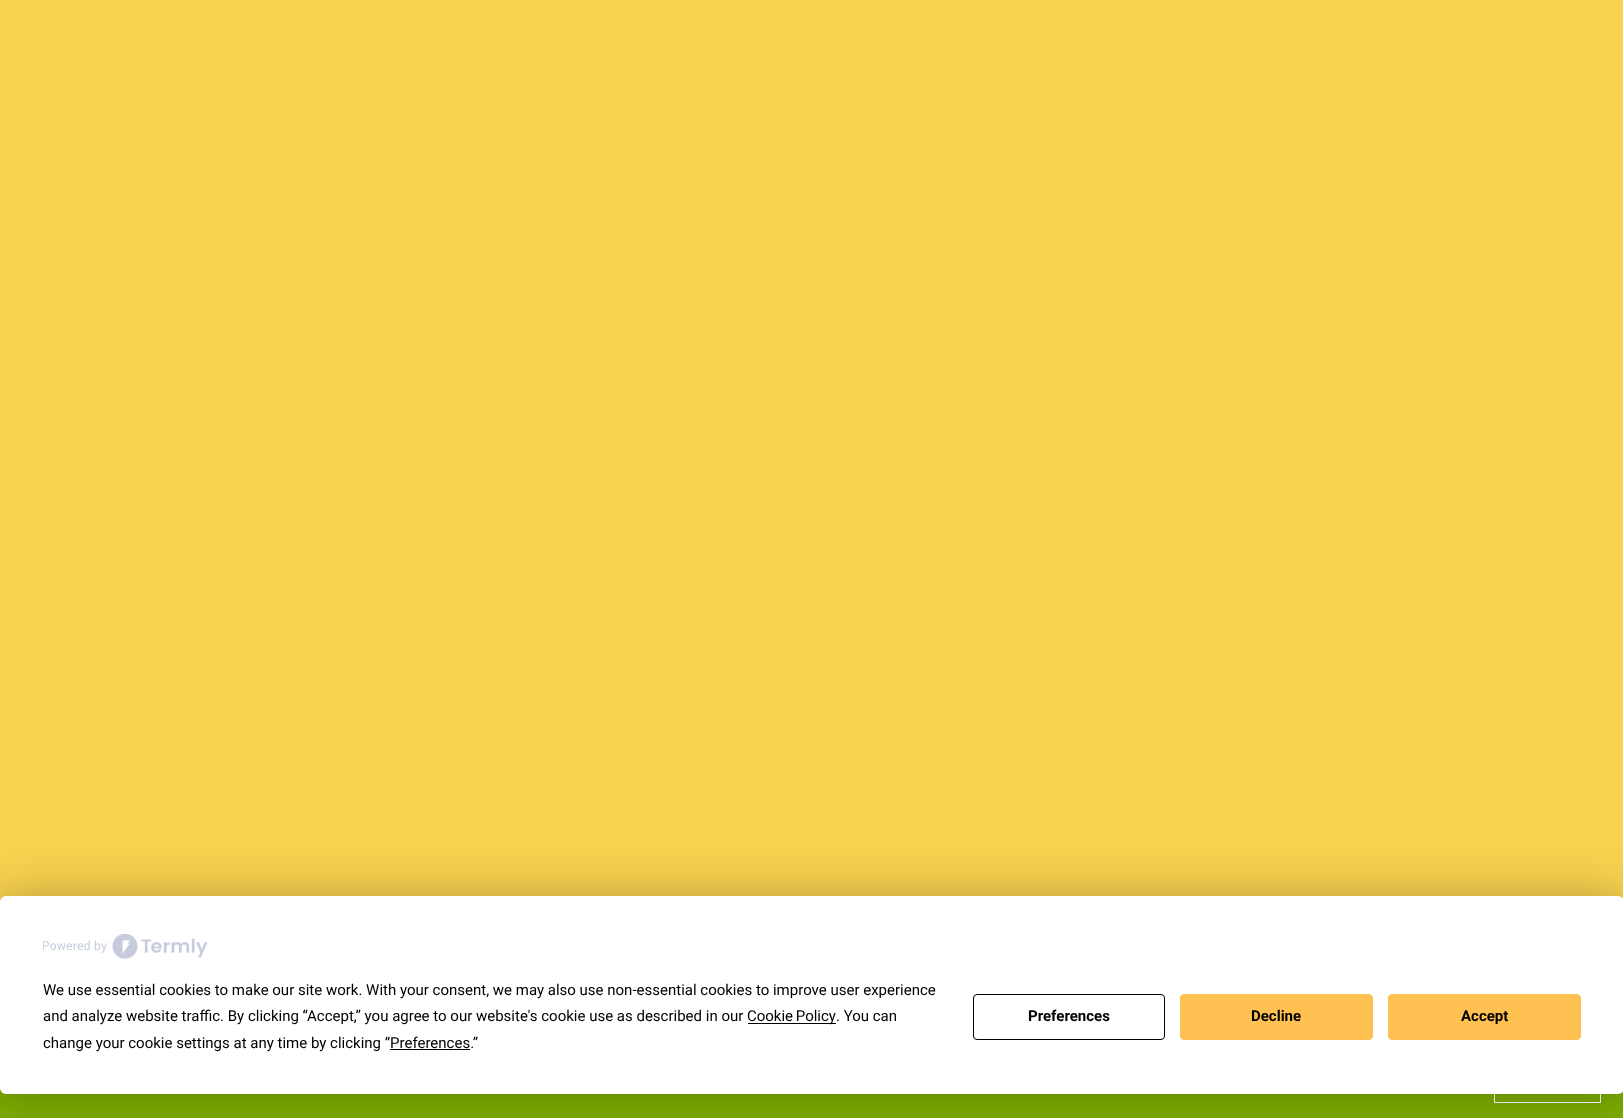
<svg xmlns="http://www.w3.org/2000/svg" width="1623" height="1118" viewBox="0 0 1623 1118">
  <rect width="100%" height="100%" fill="rgb(247,209,79)"/>
  <rect x="0" y="1088" width="1623" height="30" fill="rgb(124,170,0)"/>
  <rect x="1494.5" y="1051.5" width="106" height="51" fill="none" stroke="rgb(250,250,250)"/>
  <rect x="0" y="896" width="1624" height="198" rx="6" fill="rgba(0,0,0,0.25)" filter="blur(22px)"/>
  <rect x="0" y="896" width="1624" height="198" rx="6" fill="rgb(255,255,255)"/>
  <image x="43" y="934" width="165" height="25" href="pic1.png"/>
  <g font-family="Roboto" font-size="15" fill="rgb(0,0,0)">
    <text>
      <tspan x="43" y="995">We use essential cookies to make our site work. With your consent, we may also use non-essential cookies to improve user experience</tspan>
      <tspan x="43" y="1021">and analyze website traffic. By clicking “Accept,” you agree to our website's cookie use as described in our</tspan>
    </text>
  </g>
  <rect x="748" y="1023" width="88" height="1" fill="rgb(0,0,0)"/>
  <g font-family="Roboto" font-size="15" fill="rgb(0,0,0)">
    <text x="747" y="1021" word-spacing="-1">Cookie Policy</text>
    <text x="836" y="1021">. You can</text>
    <text x="43" y="1048">change your cookie settings at any time by clicking “Preferences.”</text>
  </g>
  <rect x="390" y="1049" width="80" height="1" fill="rgb(0,0,0)"/>
  <rect x="973.5" y="994.5" width="191" height="45" rx="3.5" fill="none" stroke="rgb(0,0,0)"/>
  <text x="1028" y="1021" font-family="Roboto" font-size="15" font-weight="bold" fill="rgb(0,0,0)">Preferences</text>
  <rect x="1180.5" y="994.5" width="192" height="45" rx="3.5" fill="rgb(255,194,82)" stroke="rgb(255,194,82)"/>
  <text x="1251" y="1021" font-family="Roboto" font-size="15" font-weight="bold" fill="rgb(0,0,0)">Decline</text>
  <rect x="1388.5" y="994.5" width="192" height="45" rx="3.5" fill="rgb(255,194,82)" stroke="rgb(255,194,82)"/>
  <text x="1461" y="1021" font-family="Roboto" font-size="15" font-weight="bold" fill="rgb(0,0,0)">Accept</text>
</svg>
